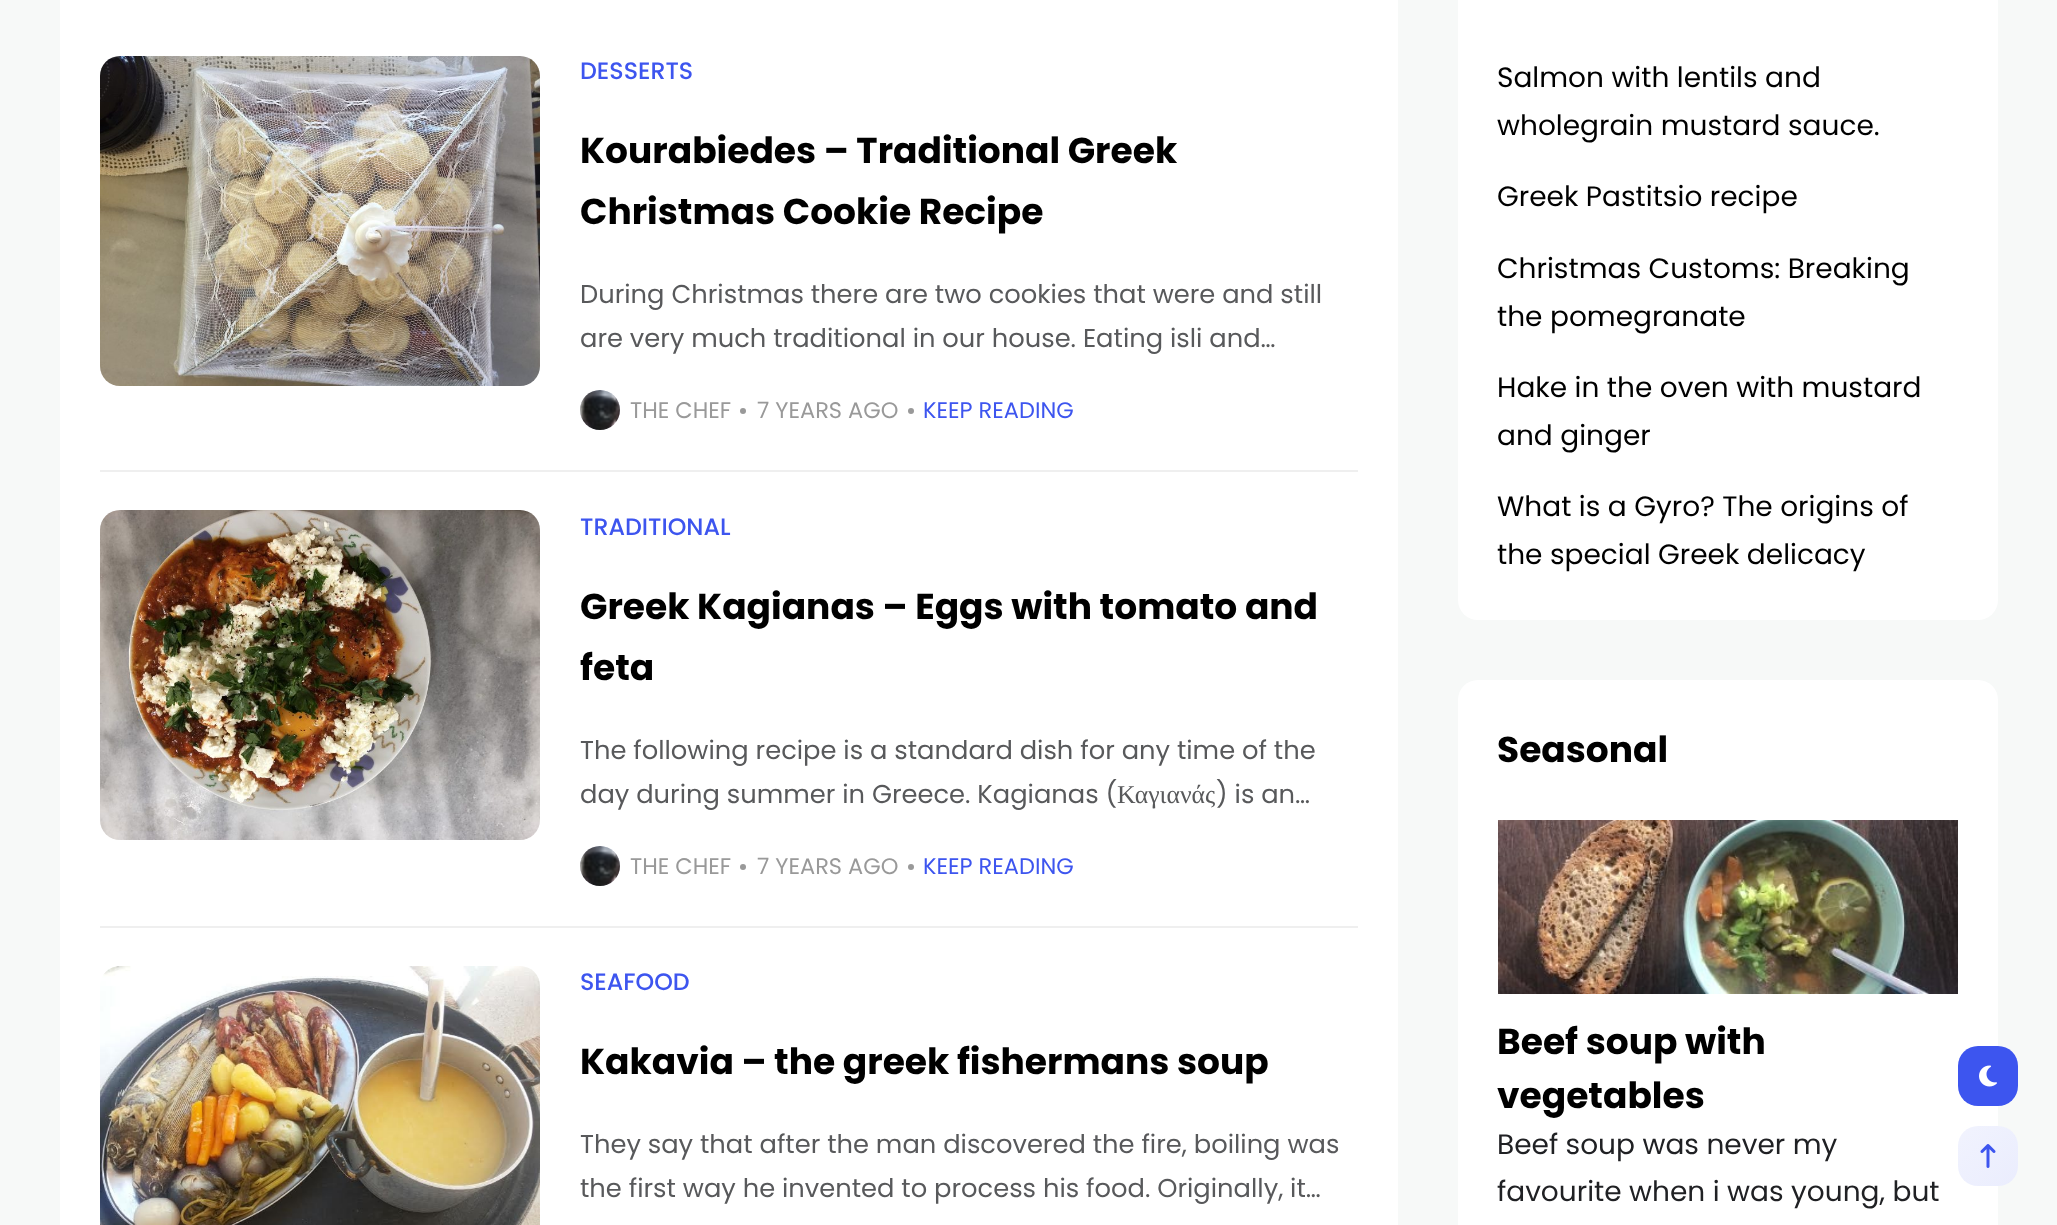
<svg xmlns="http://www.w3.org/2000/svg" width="2057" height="1225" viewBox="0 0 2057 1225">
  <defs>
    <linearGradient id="g1" gradientUnits="userSpaceOnUse" x1="1620" y1="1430" x2="500" y2="310"><stop offset="0" stop-color="rgb(61,85,239)"/><stop offset="1" stop-color="rgb(255,255,255)"/></linearGradient>
    <linearGradient id="g2" gradientUnits="userSpaceOnUse" x1="1620" y1="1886" x2="500" y2="766"><stop offset="0" stop-color="rgb(61,85,239)"/><stop offset="1" stop-color="rgb(255,255,255)"/></linearGradient>
    <linearGradient id="g3" gradientUnits="userSpaceOnUse" x1="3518" y1="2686" x2="1838" y2="1006"><stop offset="0" stop-color="rgb(61,85,239)"/><stop offset="1" stop-color="rgb(61,85,239)" stop-opacity="0"/></linearGradient>
  </defs>
  <rect width="100%" height="100%" fill="rgb(247,249,248)"/>
  <rect x="60" y="0" width="1338" height="1225" fill="rgb(255,255,255)"/>
  <image x="100" y="56" width="440" height="330" href="pic1.png"/>
  <text x="580" y="79" font-family="Poppins" font-size="23.75" font-weight="500" fill="rgb(61,85,239)">DESSERTS</text>
  <g font-family="Poppins" font-size="36" font-weight="bold" fill="rgb(0,0,0)">
    <text>
      <tspan x="580" y="163">Kourabiedes – Traditional Greek</tspan>
      <tspan x="580" y="224">Christmas Cookie Recipe</tspan>
    </text>
  </g>
  <g font-family="Poppins" font-size="25.75" fill="rgb(88,89,91)">
    <text>
      <tspan x="580" y="303">During Christmas there are two cookies that were and still</tspan>
      <tspan x="580" y="347">are very much traditional in our house. Eating isli and…</tspan>
    </text>
  </g>
  <circle cx="600" cy="410" r="20" fill="url(#g1)"/>
  <image x="580" y="390" width="40" height="40" href="pic2.png"/>
  <text x="630" y="418" font-family="Poppins" font-size="22.5" fill="rgb(153,153,153)">THE CHEF</text>
  <circle cx="743" cy="411" r="3" fill="rgb(153,153,153)"/>
  <text x="757" y="418" font-family="Poppins" font-size="22.5" fill="rgb(153,153,153)">7 YEARS AGO</text>
  <circle cx="911" cy="411" r="3" fill="rgb(153,153,153)"/>
  <text x="923" y="418" font-family="Poppins" font-size="22.5" fill="rgb(61,85,239)">KEEP READING</text>
  <rect x="100" y="470" width="1258" height="2" fill="rgb(239,239,239)"/>
  <image x="100" y="510" width="440" height="330" href="pic3.png"/>
  <text x="580" y="535" font-family="Poppins" font-size="23.75" font-weight="500" fill="rgb(61,85,239)">TRADITIONAL</text>
  <g font-family="Poppins" font-size="36" font-weight="bold" fill="rgb(0,0,0)">
    <text>
      <tspan x="580" y="619">Greek Kagianas – Eggs with tomato and</tspan>
      <tspan x="580" y="680">feta</tspan>
    </text>
  </g>
  <g font-family="Poppins" font-size="25.75" fill="rgb(88,89,91)">
    <text>
      <tspan x="580" y="759">The following recipe is a standard dish for any time of the</tspan>
      <tspan x="580" y="803">day during summer in Greece. Kagianas (</tspan>
    </text>
  </g>
  <text x="1117" y="803" font-family="Liberation Serif" font-size="25.75" fill="rgb(88,89,91)">Καγιανάς</text>
  <text x="1216" y="803" font-family="Poppins" font-size="25.75" fill="rgb(88,89,91)">) is an…</text>
  <circle cx="600" cy="866" r="20" fill="url(#g2)"/>
  <image x="580" y="846" width="40" height="40" href="pic4.png"/>
  <text x="630" y="874" font-family="Poppins" font-size="22.5" fill="rgb(153,153,153)">THE CHEF</text>
  <circle cx="743" cy="867" r="3" fill="rgb(153,153,153)"/>
  <text x="757" y="874" font-family="Poppins" font-size="22.5" fill="rgb(153,153,153)">7 YEARS AGO</text>
  <circle cx="911" cy="867" r="3" fill="rgb(153,153,153)"/>
  <text x="923" y="874" font-family="Poppins" font-size="22.5" fill="rgb(61,85,239)">KEEP READING</text>
  <rect x="100" y="926" width="1258" height="2" fill="rgb(239,239,239)"/>
  <image x="100" y="966" width="440" height="259" href="pic5.png"/>
  <text x="580" y="990" font-family="Poppins" font-size="23.75" font-weight="500" fill="rgb(61,85,239)">SEAFOOD</text>
  <text x="580" y="1074" font-family="Poppins" font-size="36" font-weight="bold" fill="rgb(0,0,0)">Kakavia – the greek fishermans soup</text>
  <g font-family="Poppins" font-size="25.75" fill="rgb(88,89,91)">
    <text>
      <tspan x="580" y="1153">They say that after the man discovered the fire, boiling was</tspan>
      <tspan x="580" y="1197">the first way he invented to process his food. Originally, it…</tspan>
    </text>
  </g>
  <rect x="1458" y="-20" width="540" height="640" rx="20" fill="rgb(255,255,255)"/>
  <g font-family="Poppins" font-size="28" fill="rgb(0,0,0)">
    <text>
      <tspan x="1497" y="87">Salmon with lentils and</tspan>
      <tspan x="1497" y="135">wholegrain mustard sauce.</tspan>
    </text>
    <text x="1497" y="206">Greek Pastitsio recipe</text>
    <text>
      <tspan x="1497" y="278">Christmas Customs: Breaking</tspan>
      <tspan x="1497" y="326">the pomegranate</tspan>
    </text>
    <text>
      <tspan x="1497" y="397">Hake in the oven with mustard</tspan>
      <tspan x="1497" y="445">and ginger</tspan>
    </text>
    <text>
      <tspan x="1497" y="516">What is a Gyro? The origins of</tspan>
      <tspan x="1497" y="564">the special Greek delicacy</tspan>
    </text>
  </g>
  <rect x="1458" y="680" width="540" height="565" rx="20" fill="rgb(255,255,255)"/>
  <text x="1497" y="762" font-family="Poppins" font-size="36" font-weight="bold" fill="rgb(0,0,0)">Seasonal</text>
  <image x="1498" y="820" width="460" height="174" href="pic6.png"/>
  <g font-family="Poppins" font-size="36" font-weight="bold" fill="rgb(0,0,0)">
    <text>
      <tspan x="1497" y="1054">Beef soup with</tspan>
      <tspan x="1497" y="1108">vegetables</tspan>
    </text>
  </g>
  <g font-family="Poppins" font-size="28" fill="rgb(32,33,36)">
    <text>
      <tspan x="1497" y="1154">Beef soup was never my</tspan>
      <tspan x="1497" y="1201">favourite when i was young, but</tspan>
    </text>
  </g>
  <rect x="1958" y="1046" width="60" height="60" rx="20" fill="rgb(61,85,239)"/>
  <image x="1979" y="1065" width="18" height="22" href="pic7.png"/>
  <rect x="1958" y="1126" width="60" height="60" rx="20" fill="rgb(255,255,255)"/>
  <rect x="1958" y="1126" width="60" height="60" rx="20" fill="url(#g3)"/>
  <image x="1980" y="1144" width="16" height="24" href="pic8.png"/>
</svg>
